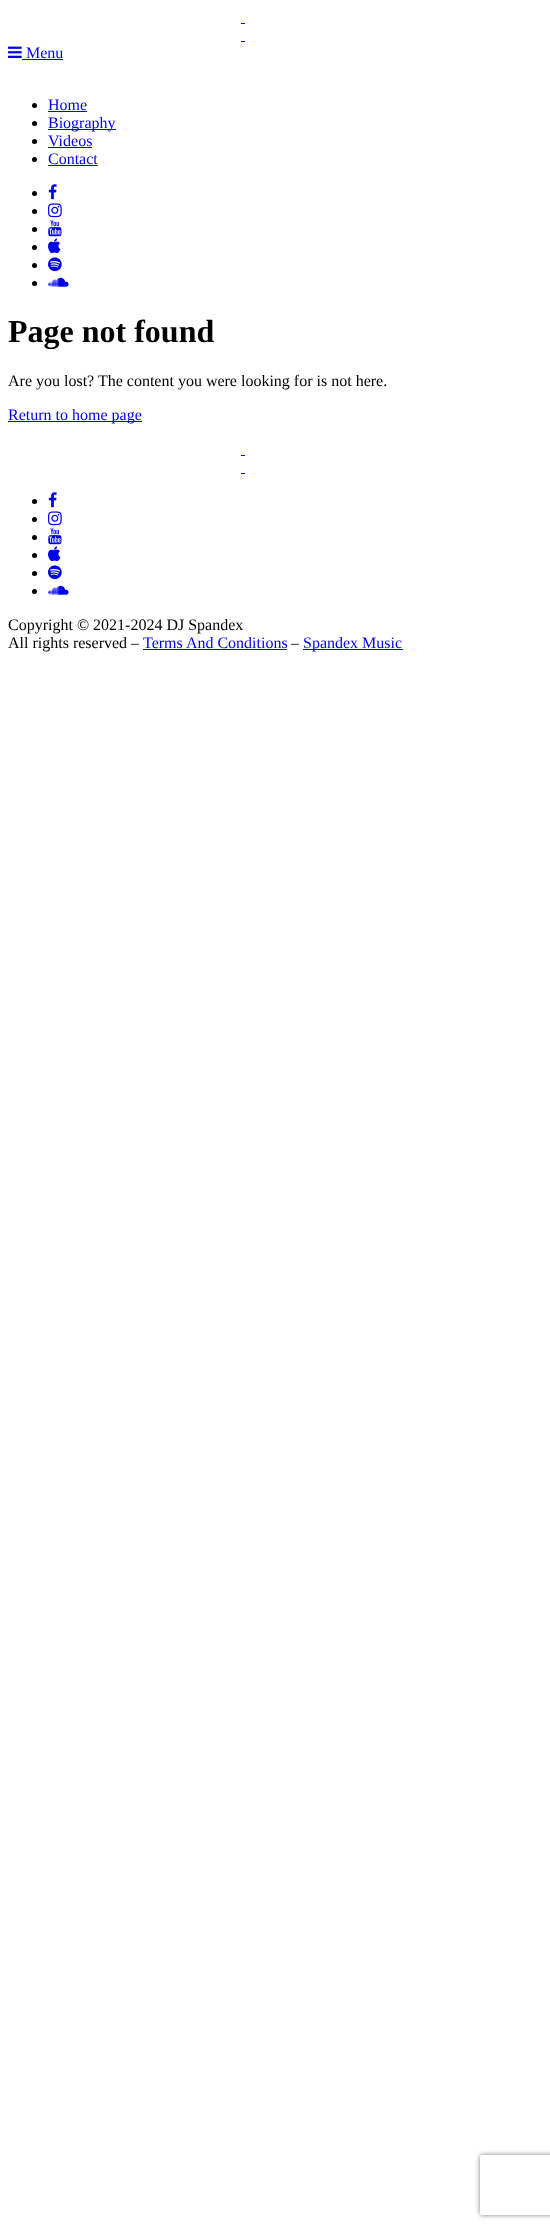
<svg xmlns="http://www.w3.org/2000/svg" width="550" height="2229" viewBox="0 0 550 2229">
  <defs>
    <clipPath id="clip1"><path d="M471 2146H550V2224H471ZM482 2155H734C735 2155 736 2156 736 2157V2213C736 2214 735 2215 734 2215H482C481 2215 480 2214 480 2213V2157C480 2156 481 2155 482 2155Z" clip-rule="evenodd"/></clipPath>
  </defs>
  <rect width="100%" height="100%" fill="rgb(255,255,255)"/>
  <rect x="241" y="23" width="4" height="1" fill="rgb(0,0,238)"/>
  <rect x="241" y="41" width="4" height="1" fill="rgb(0,0,238)"/>
  <image x="8" y="46" width="14" height="12" href="pic1.png"/>
  <text x="26" y="58" font-family="Liberation Serif" font-size="16" fill="rgb(0,0,238)">Menu</text>
  <rect x="22" y="59" width="41" height="1" fill="rgb(0,0,238)"/>
  <circle cx="34.5" cy="105.5" r="2.5" fill="rgb(0,0,0)"/>
  <text x="48" y="110" font-family="Liberation Serif" font-size="16" fill="rgb(0,0,238)">Home</text>
  <rect x="48" y="111" width="39" height="1" fill="rgb(0,0,238)"/>
  <circle cx="34.5" cy="123.5" r="2.5" fill="rgb(0,0,0)"/>
  <rect x="48" y="129" width="68" height="1" fill="rgb(0,0,238)"/>
  <text x="48" y="128" font-family="Liberation Serif" font-size="16" fill="rgb(0,0,238)">Biography</text>
  <circle cx="34.5" cy="141.5" r="2.5" fill="rgb(0,0,0)"/>
  <text x="48" y="146" font-family="Liberation Serif" font-size="16" fill="rgb(0,0,238)">Videos</text>
  <rect x="48" y="147" width="44" height="1" fill="rgb(0,0,238)"/>
  <circle cx="34.5" cy="159.5" r="2.5" fill="rgb(0,0,0)"/>
  <text x="48" y="164" font-family="Liberation Serif" font-size="16" fill="rgb(0,0,238)">Contact</text>
  <rect x="48" y="165" width="50" height="1" fill="rgb(0,0,238)"/>
  <circle cx="34.5" cy="193.5" r="2.5" fill="rgb(0,0,0)"/>
  <image x="48" y="184" width="9" height="16" href="pic2.png"/>
  <circle cx="34.5" cy="211.5" r="2.5" fill="rgb(0,0,0)"/>
  <image x="48" y="203" width="14" height="15" href="pic3.png"/>
  <circle cx="34.5" cy="229.5" r="2.5" fill="rgb(0,0,0)"/>
  <image x="48" y="220" width="14" height="17" href="pic4.png"/>
  <circle cx="34.5" cy="247.5" r="2.5" fill="rgb(0,0,0)"/>
  <image x="48" y="238" width="13" height="16" href="pic5.png"/>
  <circle cx="34.5" cy="265.5" r="2.5" fill="rgb(0,0,0)"/>
  <image x="48" y="257" width="14" height="15" href="pic6.png"/>
  <circle cx="34.5" cy="283.5" r="2.5" fill="rgb(0,0,0)"/>
  <image x="48" y="277" width="21" height="10" href="pic7.png"/>
  <text x="8" y="342" font-family="Liberation Serif" font-size="32" font-weight="bold" fill="rgb(0,0,0)">Page not found</text>
  <text x="8" y="386" font-family="Liberation Serif" font-size="16" fill="rgb(0,0,0)">Are you lost? The content you were looking for is not here.</text>
  <rect x="8" y="421" width="134" height="1" fill="rgb(0,0,238)"/>
  <text x="8" y="420" font-family="Liberation Serif" font-size="16" fill="rgb(0,0,238)">Return to home page</text>
  <rect x="241" y="455" width="4" height="1" fill="rgb(0,0,238)"/>
  <rect x="241" y="473" width="4" height="1" fill="rgb(0,0,238)"/>
  <circle cx="34.5" cy="501.5" r="2.5" fill="rgb(0,0,0)"/>
  <image x="48" y="492" width="9" height="16" href="pic2.png"/>
  <circle cx="34.5" cy="519.5" r="2.5" fill="rgb(0,0,0)"/>
  <image x="48" y="511" width="14" height="15" href="pic3.png"/>
  <circle cx="34.5" cy="537.5" r="2.5" fill="rgb(0,0,0)"/>
  <image x="48" y="528" width="14" height="17" href="pic4.png"/>
  <circle cx="34.5" cy="555.5" r="2.5" fill="rgb(0,0,0)"/>
  <image x="48" y="546" width="13" height="16" href="pic5.png"/>
  <circle cx="34.5" cy="573.5" r="2.5" fill="rgb(0,0,0)"/>
  <image x="48" y="565" width="14" height="15" href="pic6.png"/>
  <circle cx="34.5" cy="591.5" r="2.5" fill="rgb(0,0,0)"/>
  <image x="48" y="585" width="21" height="10" href="pic7.png"/>
  <g font-family="Liberation Serif" font-size="16" fill="rgb(0,0,0)">
    <text>
      <tspan x="8" y="630">Copyright © 2021-2024 DJ Spandex</tspan>
      <tspan x="8" y="648">All rights reserved –</tspan>
    </text>
  </g>
  <text x="143" y="648" font-family="Liberation Serif" font-size="16" fill="rgb(0,0,238)">Terms And Conditions</text>
  <rect x="143" y="649" width="144" height="1" fill="rgb(0,0,238)"/>
  <text x="291" y="648" font-family="Liberation Serif" font-size="16" fill="rgb(0,0,0)">–</text>
  <rect x="303" y="649" width="100" height="1" fill="rgb(0,0,238)"/>
  <text x="303" y="648" font-family="Liberation Serif" font-size="16" fill="rgb(0,0,238)">Spandex Music</text>
  <g clip-path="url(#clip1)">
    <rect x="480" y="2155" width="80" height="60" rx="2" fill="rgb(128,128,128)" filter="blur(2.5px)"/>
  </g>
</svg>
